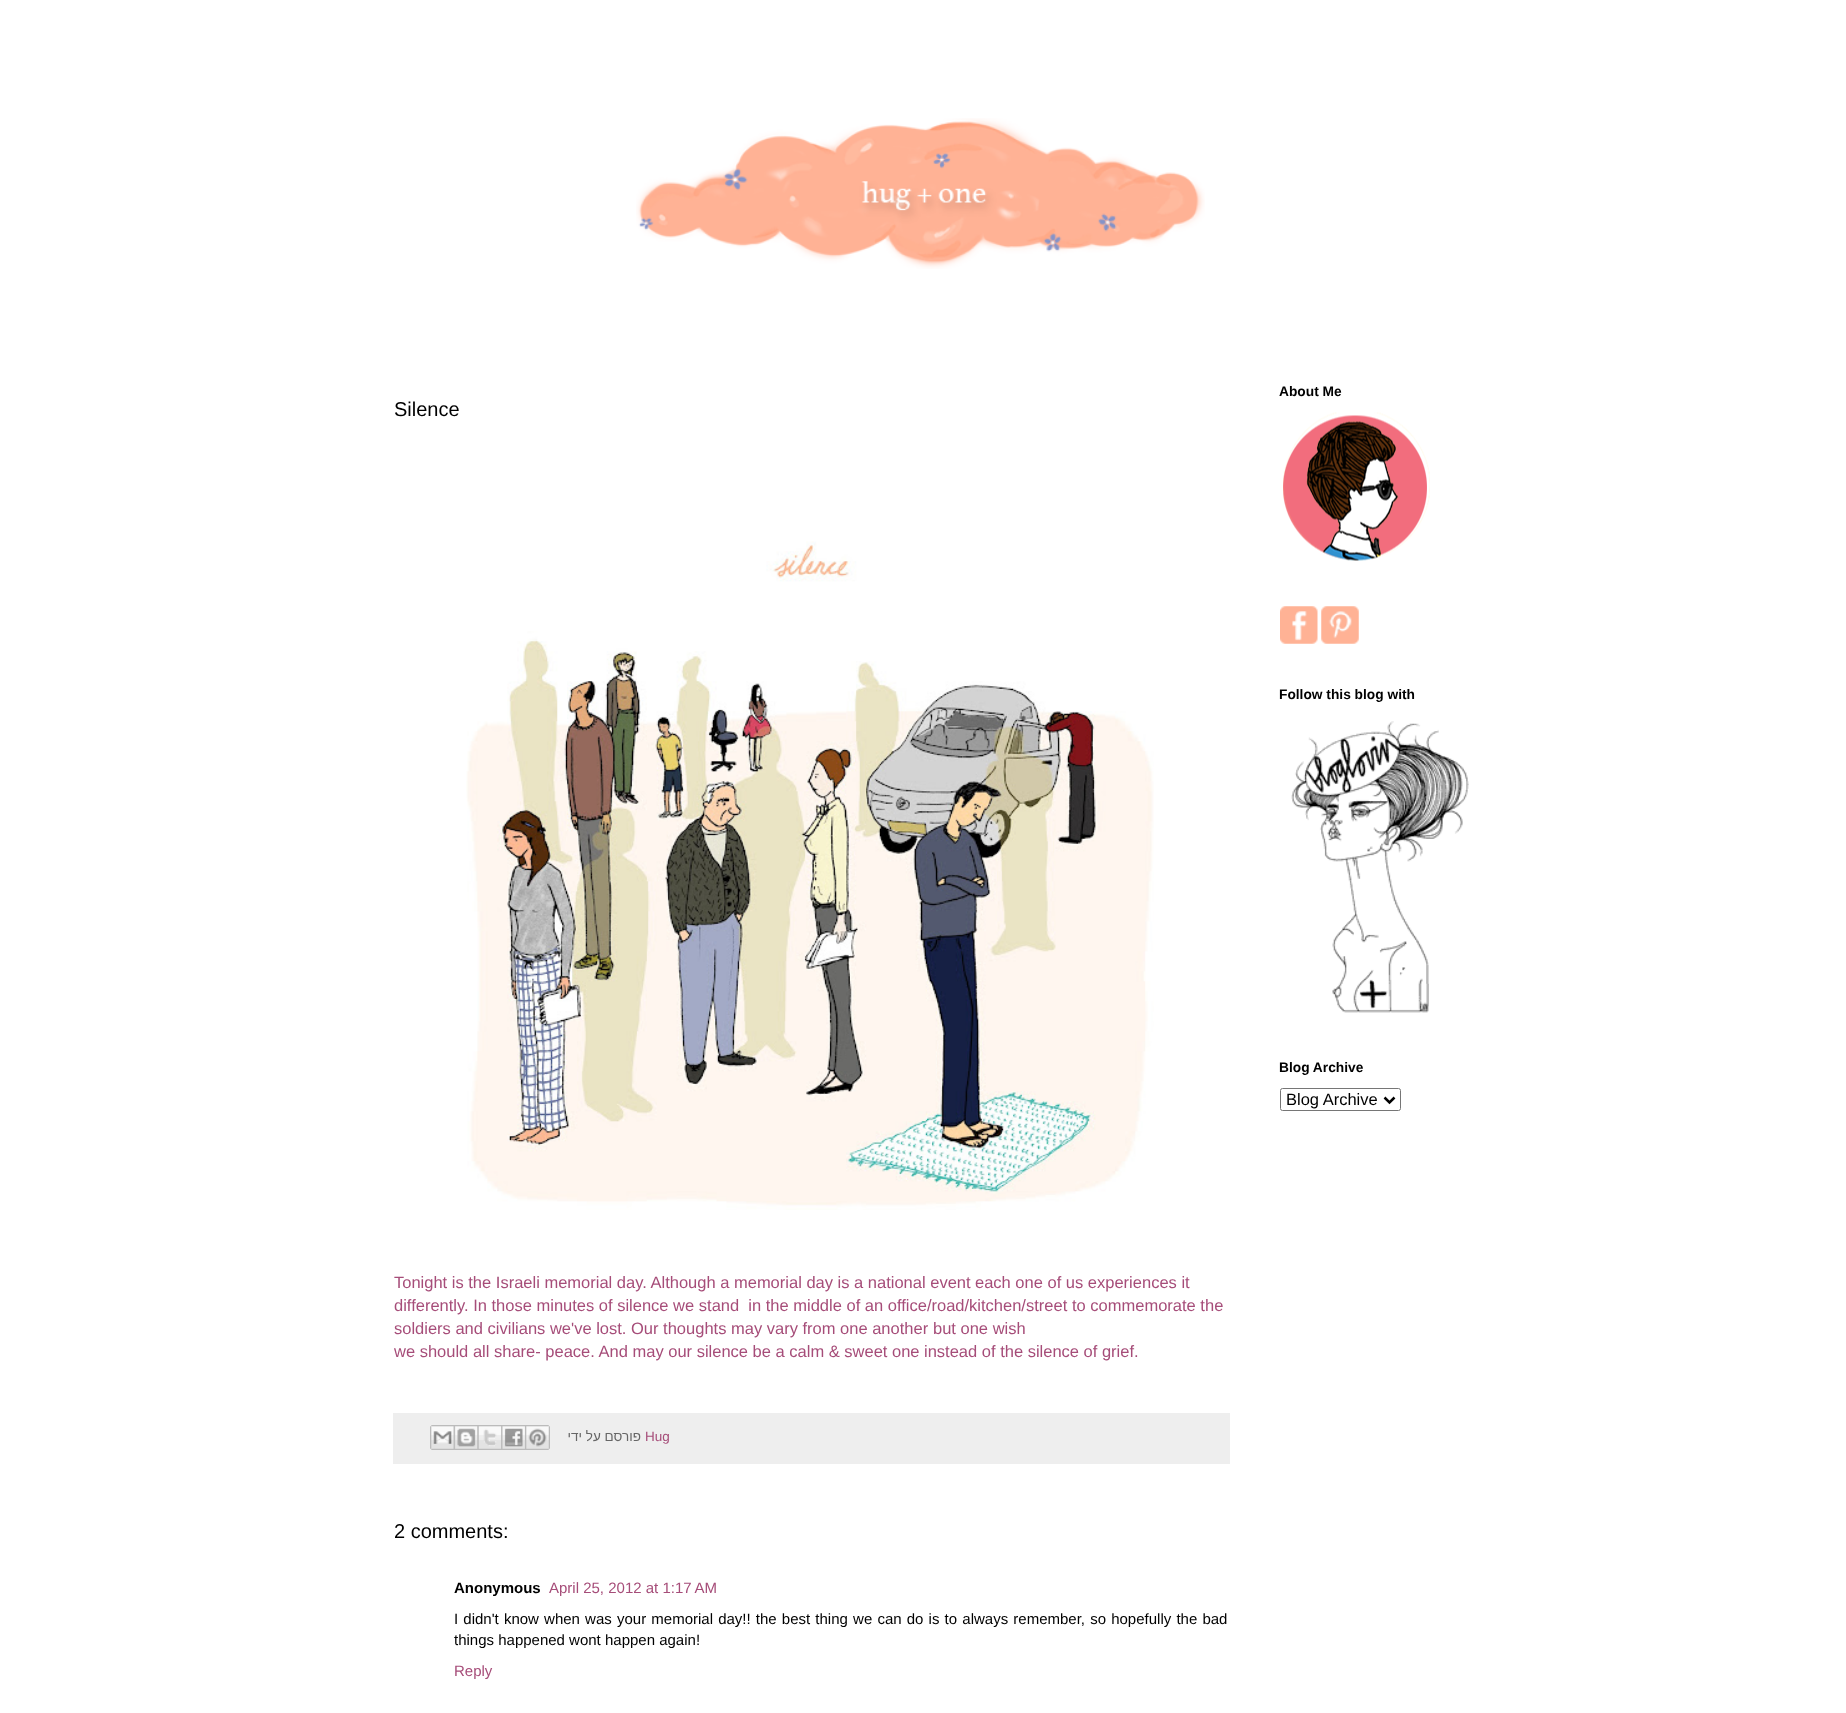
<svg xmlns="http://www.w3.org/2000/svg" width="1846" height="1713" viewBox="0 0 1846 1713">
  <rect width="100%" height="100%" fill="rgb(255,255,255)"/>
  <image x="636" y="118" width="569" height="151" href="pic1.png"/>
  <text x="394" y="416" font-family="Liberation Sans" font-size="20" fill="rgb(0,0,0)">Silence</text>
  <image x="466" y="541" width="688" height="669" href="pic2.png"/>
  <g font-family="Liberation Sans" font-size="16.5" fill="rgb(166,77,121)">
    <text x="394" y="1288">Tonight is the Israeli memorial day. Although a memorial day is a national event</text>
    <text x="975" y="1288">each one of us experiences it</text>
    <text x="394" y="1311" xml:space="preserve">differently. In those minutes of silence we stand  in the middle of an office/road/kitchen/street</text>
    <text x="1072" y="1311">to commemorate the</text>
    <text x="394" y="1334">soldiers and civilians we've lost. Our thoughts may vary from one another</text>
    <text x="933" y="1334">but one wish</text>
    <text x="394" y="1357">we should all share- peace. And may our silence be a calm &amp; sweet one</text>
    <text x="924" y="1357">instead of the silence of grief.</text>
  </g>
  <rect x="393" y="1413" width="837" height="51" fill="rgb(238,238,238)"/>
  <image x="430" y="1425" width="24" height="25" href="pic3.png"/>
  <image x="453" y="1425" width="25" height="25" href="pic4.png"/>
  <image x="477" y="1425" width="25" height="25" href="pic5.png"/>
  <image x="501" y="1425" width="24" height="25" href="pic6.png"/>
  <image x="525" y="1425" width="25" height="25" href="pic7.png"/>
  <text x="641" y="1441" font-family="Liberation Sans" font-size="13.5" direction="rtl" fill="rgb(102,102,102)">פורסם על ידי</text>
  <text x="645" y="1441" font-family="Liberation Sans" font-size="13.5" fill="rgb(166,77,121)">Hug</text>
  <text x="394" y="1538" font-family="Liberation Sans" font-size="20" fill="rgb(0,0,0)">2 comments:</text>
  <text x="454" y="1593" font-family="Liberation Sans" font-size="15" font-weight="bold" fill="rgb(0,0,0)">Anonymous</text>
  <text x="549" y="1593" font-family="Liberation Sans" font-size="15" fill="rgb(166,77,121)">April 25, 2012 at 1:17 AM</text>
  <g font-family="Liberation Sans" font-size="15" fill="rgb(0,0,0)">
    <text>
      <tspan x="454" y="1624" word-spacing="1">I didn't know when was your memorial day!! the best thing we can do is to always remember, so hopefully the bad</tspan>
      <tspan x="454" y="1645">things happened wont happen again!</tspan>
    </text>
  </g>
  <text x="454" y="1676" font-family="Liberation Sans" font-size="15" fill="rgb(166,77,121)">Reply</text>
  <text x="1279" y="396" font-family="Liberation Sans" font-size="13.75" font-weight="bold" fill="rgb(0,0,0)">About Me</text>
  <image x="1283" y="412" width="147" height="149" href="pic8.png"/>
  <image x="1280" y="606" width="38" height="38" href="pic9.png"/>
  <image x="1321" y="606" width="38" height="38" href="pic10.png"/>
  <text x="1279" y="699" font-family="Liberation Sans" font-size="13.75" font-weight="bold" fill="rgb(0,0,0)">Follow this blog with</text>
  <image x="1291" y="721" width="178" height="292" href="pic11.png"/>
  <text x="1279" y="1072" font-family="Liberation Sans" font-size="13.75" font-weight="bold" fill="rgb(0,0,0)">Blog Archive</text>
  <rect x="1280.5" y="1088.5" width="120" height="22" rx="2" fill="none" stroke="rgb(118,118,118)"/>
  <path d="M1384.5 1097.5L1389.5 1102.5L1394.5 1097.5" fill="none" stroke="rgb(0,0,0)" stroke-width="2.5"/>
  <text x="1286" y="1105" font-family="Liberation Sans" font-size="16.5" fill="rgb(0,0,0)">Blog Archive</text>
</svg>
